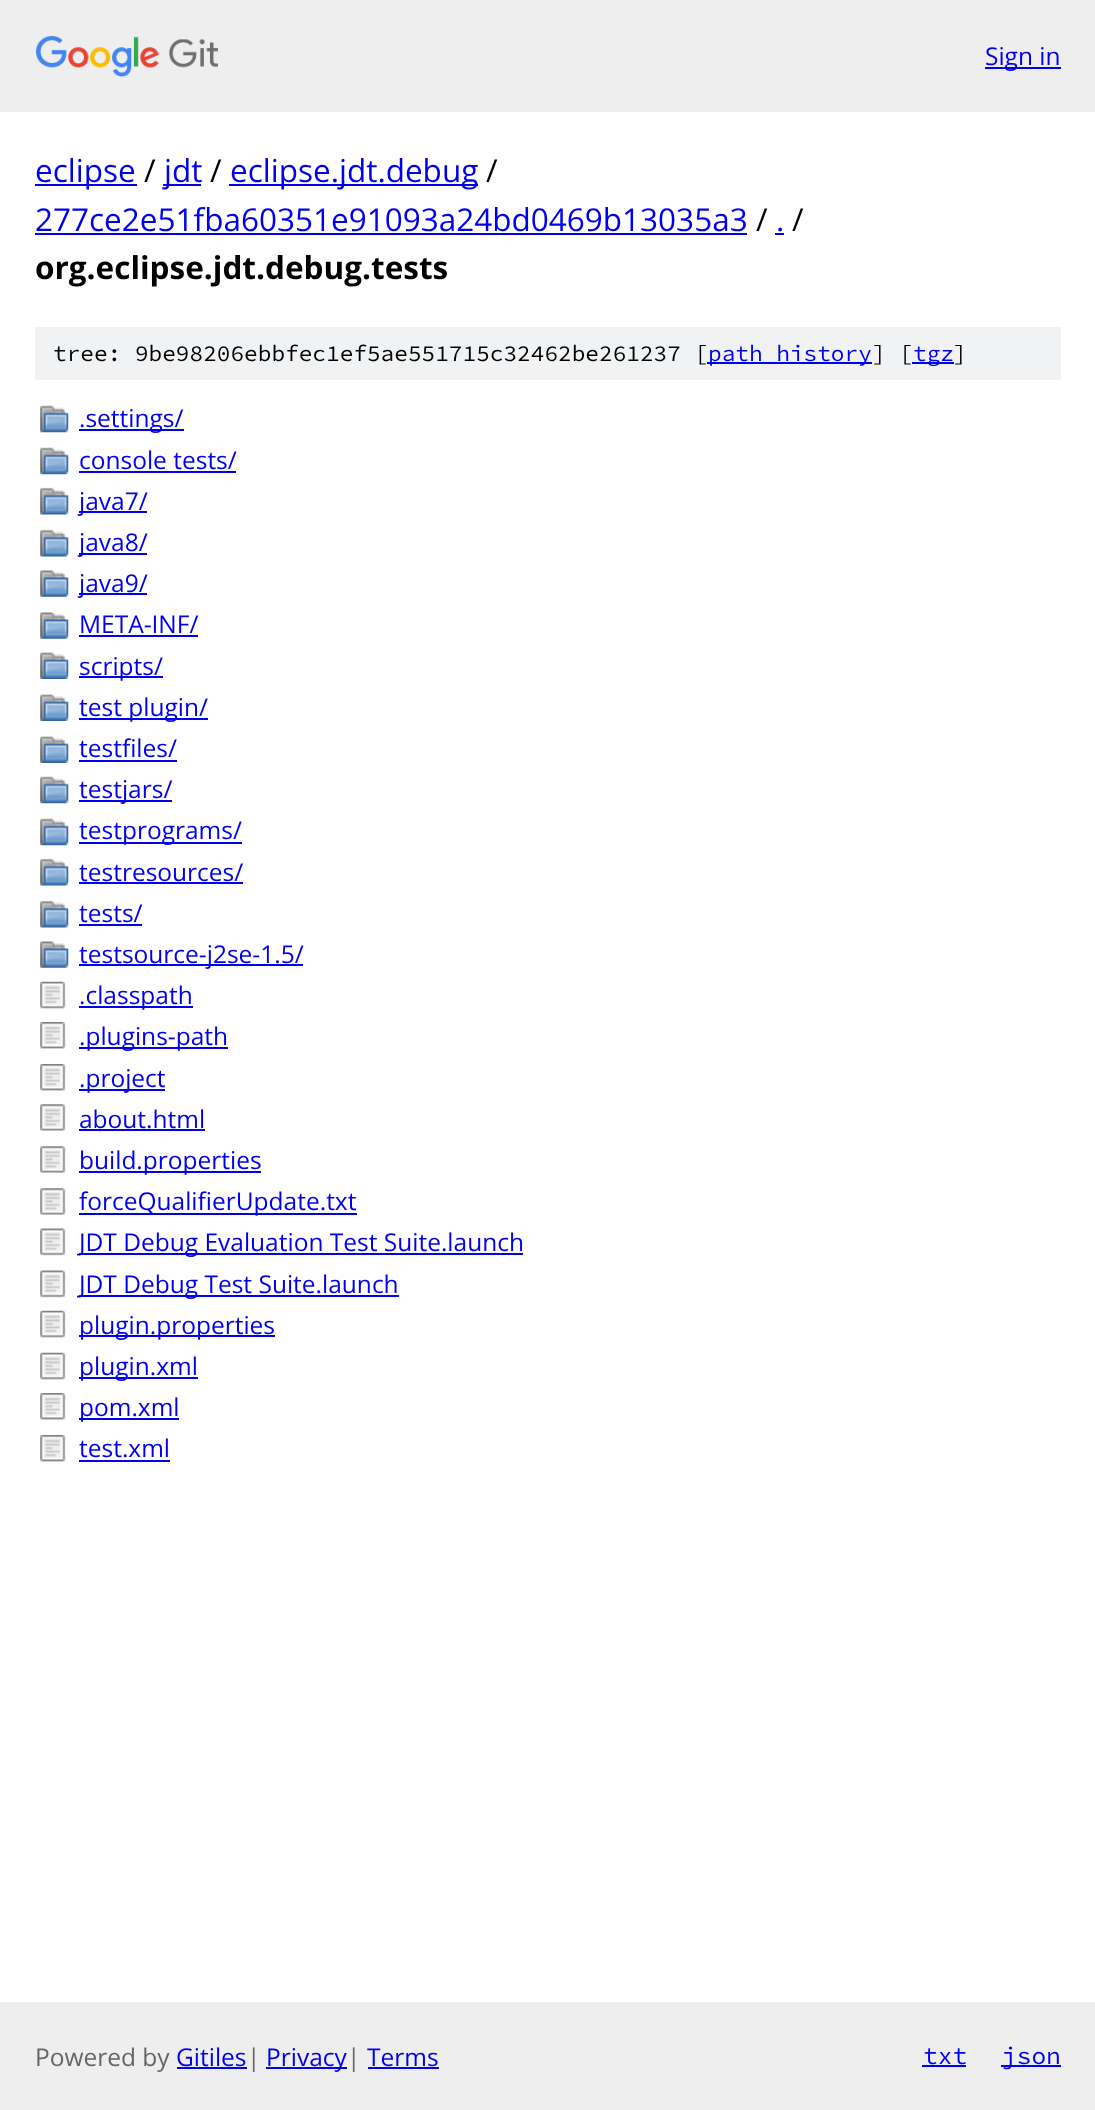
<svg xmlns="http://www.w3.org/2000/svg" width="1095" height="2110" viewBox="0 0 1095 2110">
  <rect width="100%" height="100%" fill="rgb(255,255,255)"/>
  <rect x="0" y="0" width="1095" height="112" fill="rgb(238,238,238)"/>
  <image x="35" y="35" width="183" height="42" href="pic1.png"/>
  <rect x="985" y="67" width="76" height="2" fill="rgb(0,0,238)"/>
  <text x="985" y="65" font-family="Open Sans" font-size="24.5" fill="rgb(0,0,238)">Sign in</text>
  <rect x="35" y="184" width="102" height="2" fill="rgb(0,0,238)"/>
  <text x="35" y="182" font-family="Open Sans" font-size="31.5" fill="rgb(0,0,238)">eclipse</text>
  <text x="144" y="182" font-family="Open Sans" font-size="31.5" fill="rgb(0,0,0)">/</text>
  <rect x="163" y="184" width="38" height="2" fill="rgb(0,0,238)"/>
  <text x="164" y="182" font-family="Open Sans" font-size="31.5" fill="rgb(0,0,238)">jdt</text>
  <text x="210" y="182" font-family="Open Sans" font-size="31.5" fill="rgb(0,0,0)">/</text>
  <rect x="229" y="184" width="249" height="2" fill="rgb(0,0,238)"/>
  <text x="230" y="182" font-family="Open Sans" font-size="31.5" fill="rgb(0,0,238)">eclipse.jdt.debug</text>
  <text x="486" y="182" font-family="Open Sans" font-size="31.5" fill="rgb(0,0,0)">/</text>
  <text x="35" y="231" font-family="Open Sans" font-size="31.5" fill="rgb(0,0,238)">277ce2e51fba60351e91093a24bd0469b13035a3</text>
  <rect x="35" y="233" width="712" height="2" fill="rgb(0,0,238)"/>
  <text x="756" y="231" font-family="Open Sans" font-size="31.5" fill="rgb(0,0,0)">/</text>
  <text x="776" y="231" font-family="Open Sans" font-size="31.5" fill="rgb(0,0,238)">.</text>
  <rect x="775" y="233" width="9" height="2" fill="rgb(0,0,238)"/>
  <text x="792" y="231" font-family="Open Sans" font-size="31.5" fill="rgb(0,0,0)">/</text>
  <text x="35" y="279" font-family="Open Sans" font-size="31.5" font-weight="bold" fill="rgb(0,0,0)">org.eclipse.jdt.debug.tests</text>
  <rect x="35" y="327" width="1026" height="53" fill="rgb(241,242,243)"/>
  <text x="53" y="361" font-family="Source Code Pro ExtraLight" font-size="22.75" font-weight="200" fill="rgb(0,0,0)">tree: 9be98206ebbfec1ef5ae551715c32462be261237 [</text>
  <rect x="707" y="362" width="165" height="2" fill="rgb(0,0,238)"/>
  <text x="708" y="361" font-family="Source Code Pro ExtraLight" font-size="22.75" font-weight="200" fill="rgb(0,0,238)">path history</text>
  <text x="872" y="361" font-family="Source Code Pro ExtraLight" font-size="22.75" font-weight="200" fill="rgb(0,0,0)">] [</text>
  <rect x="912" y="362" width="42" height="2" fill="rgb(0,0,238)"/>
  <text x="913" y="361" font-family="Source Code Pro ExtraLight" font-size="22.75" font-weight="200" fill="rgb(0,0,238)">tgz</text>
  <text x="953" y="361" font-family="Source Code Pro ExtraLight" font-size="22.75" font-weight="200" fill="rgb(0,0,0)">]</text>
  <image x="40" y="405" width="29" height="28" href="pic2.png"/>
  <rect x="79" y="429" width="105" height="2" fill="rgb(0,0,238)"/>
  <text x="79" y="427" font-family="Open Sans" font-size="24.5" fill="rgb(0,0,238)">.settings/</text>
  <image x="40" y="447" width="29" height="28" href="pic2.png"/>
  <text x="79" y="469" font-family="Open Sans" font-size="24.5" fill="rgb(0,0,238)">console tests/</text>
  <rect x="79" y="471" width="157" height="2" fill="rgb(0,0,238)"/>
  <image x="40" y="487" width="29" height="28" href="pic3.png"/>
  <rect x="79" y="511" width="68" height="2" fill="rgb(0,0,238)"/>
  <text x="79" y="510" font-family="Open Sans" font-size="24.5" fill="rgb(0,0,238)">java7/</text>
  <image x="40" y="529" width="29" height="28" href="pic3.png"/>
  <rect x="79" y="553" width="68" height="2" fill="rgb(0,0,238)"/>
  <text x="79" y="551" font-family="Open Sans" font-size="24.5" fill="rgb(0,0,238)">java8/</text>
  <image x="40" y="570" width="29" height="27" href="pic4.png"/>
  <rect x="79" y="593" width="68" height="2" fill="rgb(0,0,238)"/>
  <text x="79" y="592" font-family="Open Sans" font-size="24.5" fill="rgb(0,0,238)">java9/</text>
  <image x="40" y="612" width="29" height="27" href="pic4.png"/>
  <text x="79" y="633" font-family="Open Sans" font-size="24.5" fill="rgb(0,0,238)">META-INF/</text>
  <rect x="79" y="635" width="119" height="2" fill="rgb(0,0,238)"/>
  <image x="40" y="652" width="29" height="27" href="pic5.png"/>
  <rect x="79" y="676" width="84" height="2" fill="rgb(0,0,238)"/>
  <text x="79" y="675" font-family="Open Sans" font-size="24.5" fill="rgb(0,0,238)">scripts/</text>
  <image x="40" y="694" width="29" height="27" href="pic5.png"/>
  <rect x="79" y="718" width="129" height="2" fill="rgb(0,0,238)"/>
  <text x="79" y="716" font-family="Open Sans" font-size="24.5" fill="rgb(0,0,238)">test plugin/</text>
  <image x="40" y="736" width="29" height="27" href="pic5.png"/>
  <text x="79" y="757" font-family="Open Sans" font-size="24.5" fill="rgb(0,0,238)">testfiles/</text>
  <rect x="79" y="760" width="98" height="2" fill="rgb(0,0,238)"/>
  <image x="40" y="776" width="29" height="28" href="pic2.png"/>
  <rect x="79" y="800" width="93" height="2" fill="rgb(0,0,238)"/>
  <text x="79" y="798" font-family="Open Sans" font-size="24.5" fill="rgb(0,0,238)">testjars/</text>
  <image x="40" y="818" width="29" height="28" href="pic2.png"/>
  <rect x="79" y="842" width="163" height="2" fill="rgb(0,0,238)"/>
  <text x="79" y="839" font-family="Open Sans" font-size="24.5" fill="rgb(0,0,238)">testprograms/</text>
  <image x="40" y="858" width="29" height="28" href="pic3.png"/>
  <text x="79" y="881" font-family="Open Sans" font-size="24.5" fill="rgb(0,0,238)">testresources/</text>
  <rect x="79" y="882" width="164" height="2" fill="rgb(0,0,238)"/>
  <image x="40" y="900" width="29" height="28" href="pic3.png"/>
  <text x="79" y="922" font-family="Open Sans" font-size="24.5" fill="rgb(0,0,238)">tests/</text>
  <rect x="79" y="924" width="63" height="2" fill="rgb(0,0,238)"/>
  <image x="40" y="941" width="29" height="27" href="pic4.png"/>
  <rect x="79" y="964" width="224" height="2" fill="rgb(0,0,238)"/>
  <text x="79" y="963" font-family="Open Sans" font-size="24.5" fill="rgb(0,0,238)">testsource-j2se-1.5/</text>
  <image x="40" y="981" width="26" height="28" href="pic6.png"/>
  <rect x="79" y="1006" width="114" height="2" fill="rgb(0,0,238)"/>
  <text x="79" y="1004" font-family="Open Sans" font-size="24.5" fill="rgb(0,0,238)">.classpath</text>
  <image x="40" y="1022" width="26" height="27" href="pic7.png"/>
  <rect x="79" y="1047" width="149" height="2" fill="rgb(0,0,238)"/>
  <text x="79" y="1045" font-family="Open Sans" font-size="24.5" fill="rgb(0,0,238)">.plugins-path</text>
  <image x="40" y="1064" width="26" height="27" href="pic7.png"/>
  <rect x="79" y="1089" width="86" height="2" fill="rgb(0,0,238)"/>
  <text x="79" y="1087" font-family="Open Sans" font-size="24.5" fill="rgb(0,0,238)">.project</text>
  <image x="40" y="1104" width="26" height="27" href="pic8.png"/>
  <text x="79" y="1128" font-family="Open Sans" font-size="24.5" fill="rgb(0,0,238)">about.html</text>
  <rect x="79" y="1129" width="126" height="2" fill="rgb(0,0,238)"/>
  <image x="40" y="1146" width="26" height="27" href="pic8.png"/>
  <rect x="79" y="1171" width="182" height="2" fill="rgb(0,0,238)"/>
  <text x="79" y="1169" font-family="Open Sans" font-size="24.5" fill="rgb(0,0,238)">build.properties</text>
  <image x="40" y="1188" width="26" height="27" href="pic8.png"/>
  <rect x="79" y="1213" width="278" height="2" fill="rgb(0,0,238)"/>
  <text x="79" y="1210" font-family="Open Sans" font-size="24.5" fill="rgb(0,0,238)">forceQualifierUpdate.txt</text>
  <image x="40" y="1228" width="26" height="28" href="pic9.png"/>
  <rect x="79" y="1253" width="444" height="2" fill="rgb(0,0,238)"/>
  <text x="79" y="1251" font-family="Open Sans" font-size="24.5" fill="rgb(0,0,238)">JDT Debug Evaluation Test Suite.launch</text>
  <image x="40" y="1270" width="26" height="28" href="pic9.png"/>
  <rect x="79" y="1295" width="320" height="2" fill="rgb(0,0,238)"/>
  <text x="79" y="1293" font-family="Open Sans" font-size="24.5" fill="rgb(0,0,238)">JDT Debug Test Suite.launch</text>
  <image x="40" y="1310" width="26" height="28" href="pic6.png"/>
  <rect x="79" y="1335" width="196" height="2" fill="rgb(0,0,238)"/>
  <text x="79" y="1334" font-family="Open Sans" font-size="24.5" fill="rgb(0,0,238)">plugin.properties</text>
  <image x="40" y="1352" width="26" height="28" href="pic6.png"/>
  <rect x="79" y="1377" width="119" height="2" fill="rgb(0,0,238)"/>
  <text x="79" y="1375" font-family="Open Sans" font-size="24.5" fill="rgb(0,0,238)">plugin.xml</text>
  <image x="40" y="1393" width="26" height="27" href="pic7.png"/>
  <rect x="79" y="1418" width="100" height="2" fill="rgb(0,0,238)"/>
  <text x="79" y="1416" font-family="Open Sans" font-size="24.5" fill="rgb(0,0,238)">pom.xml</text>
  <image x="40" y="1435" width="26" height="27" href="pic7.png"/>
  <text x="79" y="1457" font-family="Open Sans" font-size="24.5" fill="rgb(0,0,238)">test.xml</text>
  <rect x="79" y="1460" width="91" height="2" fill="rgb(0,0,238)"/>
  <rect x="0" y="2002" width="1095" height="108" fill="rgb(238,238,238)"/>
  <text x="35" y="2066" font-family="Open Sans" font-size="24.5" fill="rgb(102,102,102)">Powered by</text>
  <text x="176" y="2066" font-family="Open Sans" font-size="24.5" fill="rgb(0,0,238)">Gitiles</text>
  <rect x="177" y="2067" width="70" height="2" fill="rgb(0,0,238)"/>
  <text x="247" y="2066" font-family="Open Sans" font-size="24.5" fill="rgb(102,102,102)">|</text>
  <rect x="266" y="2067" width="81" height="2" fill="rgb(0,0,238)"/>
  <text x="266" y="2066" font-family="Open Sans" font-size="24.5" fill="rgb(0,0,238)">Privacy</text>
  <text x="347" y="2066" font-family="Open Sans" font-size="24.5" fill="rgb(102,102,102)">|</text>
  <text x="367" y="2066" font-family="Open Sans" font-size="24.5" fill="rgb(0,0,238)">Terms</text>
  <rect x="368" y="2067" width="71" height="2" fill="rgb(0,0,238)"/>
  <text x="923" y="2064" font-family="Source Code Pro ExtraLight" font-size="24.5" font-weight="200" fill="rgb(0,0,238)">txt</text>
  <rect x="922" y="2065" width="44" height="2" fill="rgb(0,0,238)"/>
  <rect x="1001" y="2065" width="60" height="2" fill="rgb(0,0,238)"/>
  <text x="1002" y="2064" font-family="Source Code Pro ExtraLight" font-size="24.5" font-weight="200" fill="rgb(0,0,238)">json</text>
</svg>
